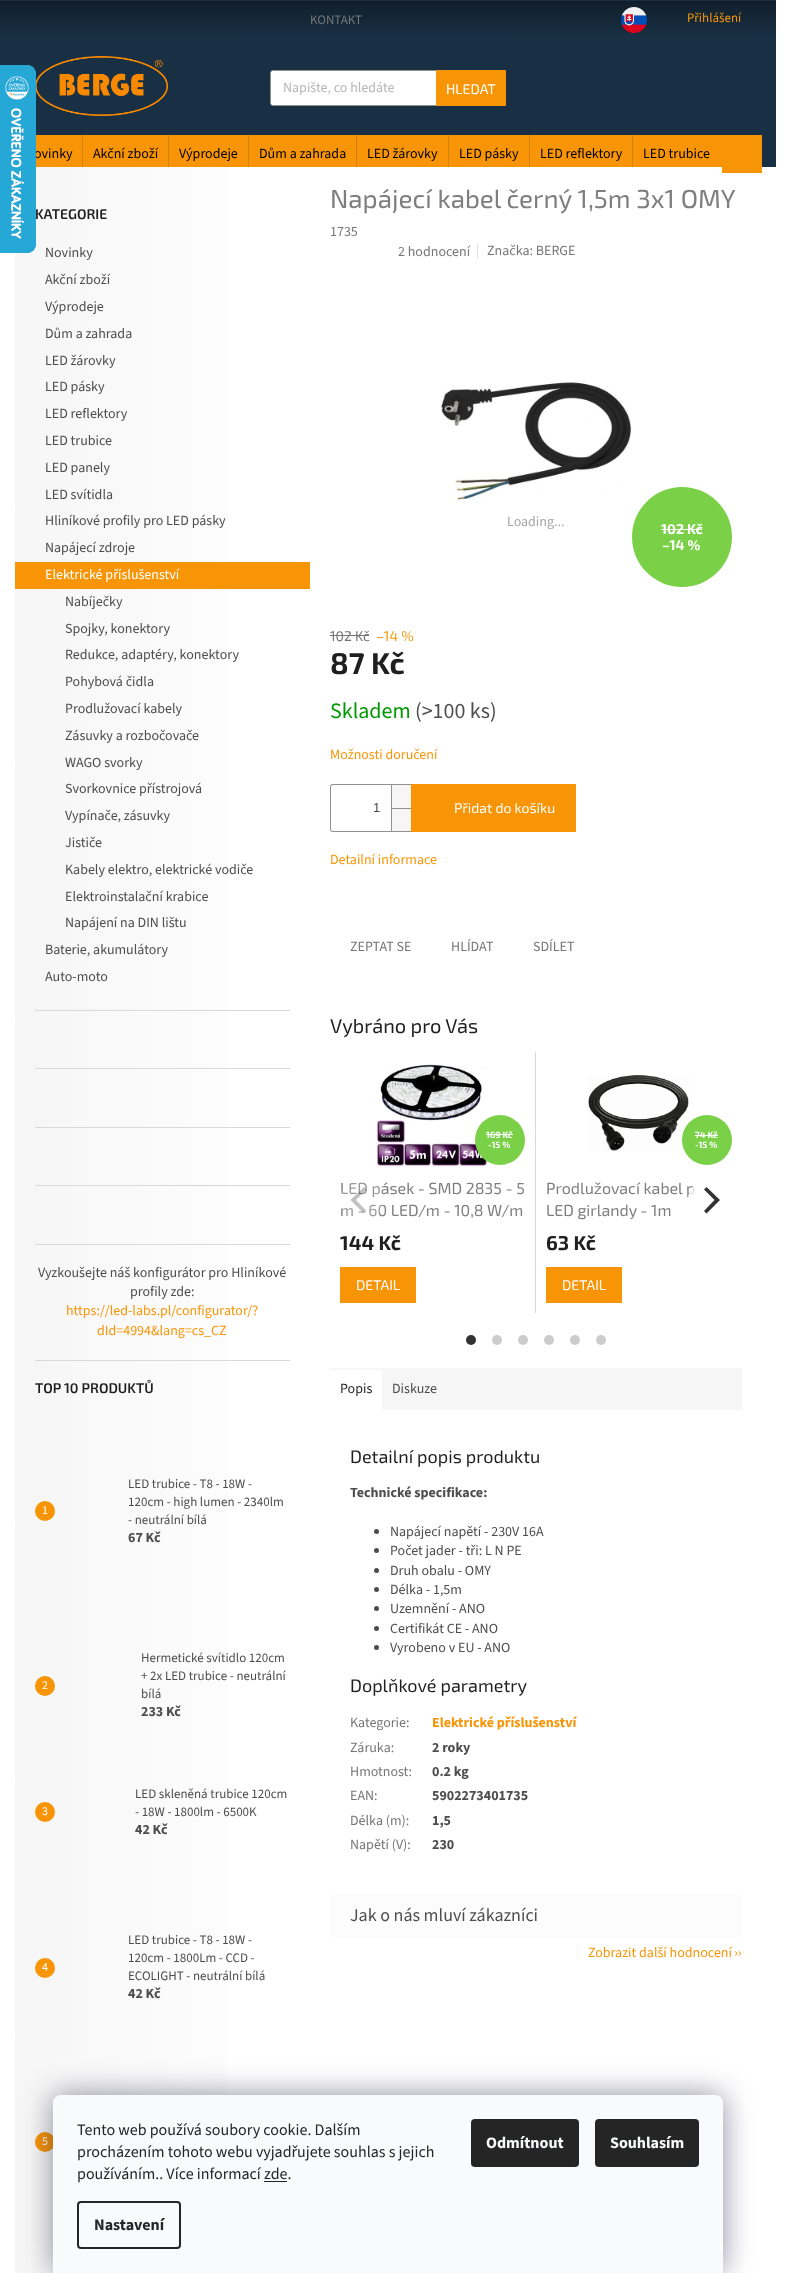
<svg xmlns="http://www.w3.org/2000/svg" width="791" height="2273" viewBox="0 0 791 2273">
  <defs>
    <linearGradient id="g1" gradientUnits="userSpaceOnUse" x1="15" y1="1771" x2="310" y2="1771"><stop offset="0" stop-color="rgb(246,246,246)"/><stop offset="1" stop-color="rgb(255,255,255)"/></linearGradient>
    <linearGradient id="g2" gradientUnits="userSpaceOnUse" x1="388" y1="-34" x2="388" y2="1"><stop offset="0" stop-color="rgb(16,30,42)"/><stop offset="1" stop-color="rgb(25,48,68)"/></linearGradient>
    <linearGradient id="g3" gradientUnits="userSpaceOnUse" x1="388" y1="1" x2="388" y2="36"><stop offset="0" stop-color="rgb(16,30,42)"/><stop offset="1" stop-color="rgb(25,48,68)"/></linearGradient>
  </defs>
  <rect width="100%" height="100%" fill="rgb(255,255,255)"/>
  <rect x="0" y="36" width="776" height="131" fill="rgb(25,48,68)"/>
  <rect x="36" y="135" width="686" height="32" fill="rgb(248,149,7)"/>
  <text x="34" y="158" font-family="'Source Sans 3'" font-size="14" fill="rgb(0,0,0)">ovinky</text>
  <rect x="15" y="167" width="213" height="2106" fill="url(#g1)"/>
  <text x="35" y="219" font-family="'Exo 2'" font-size="14" font-weight="600" fill="rgb(31,31,31)">KATEGORIE</text>
  <image x="0" y="65" width="36" height="188" href="pic1.png"/>
  <rect x="0" y="0" width="776" height="1" fill="url(#g2)"/>
  <rect x="0" y="1" width="776" height="35" fill="url(#g3)"/>
  <text x="310" y="24" font-family="'Source Sans 3'" font-size="13" fill="rgb(118,118,118)">KONTAKT</text>
  <image x="621" y="7" width="26" height="26" href="pic2.png"/>
  <text x="687" y="22" font-family="'Source Sans 3'" font-size="13" fill="rgb(248,149,7)">Přihlášení</text>
  <image x="36" y="56" width="132" height="60" href="pic3.png"/>
  <rect x="270.5" y="70.5" width="235" height="35" rx="2.5" fill="rgb(255,255,255)" stroke="rgb(145,145,145)"/>
  <text x="283" y="92" font-family="'Source Sans 3'" font-size="14" fill="rgb(182,182,182)">Napište, co hledáte</text>
  <rect x="436" y="70" width="70" height="36" fill="rgb(248,149,7)"/>
  <text x="446" y="94" font-family="'Exo 2'" font-size="14" fill="rgb(255,255,255)">HLEDAT</text>
  <rect x="82" y="135" width="1" height="32" fill="rgb(214,127,5)"/>
  <text x="93" y="158" font-family="'Source Sans 3'" font-size="14" fill="rgb(0,0,0)">Akční zboží</text>
  <rect x="168" y="135" width="1" height="32" fill="rgb(214,127,5)"/>
  <text x="179" y="158" font-family="'Source Sans 3'" font-size="14" fill="rgb(0,0,0)">Výprodeje</text>
  <rect x="248" y="135" width="1" height="32" fill="rgb(214,127,5)"/>
  <text x="259" y="158" font-family="'Source Sans 3'" font-size="14" fill="rgb(0,0,0)">Dům a zahrada</text>
  <rect x="356" y="135" width="1" height="32" fill="rgb(214,127,5)"/>
  <text x="367" y="158" font-family="'Source Sans 3'" font-size="14" fill="rgb(0,0,0)">LED žárovky</text>
  <rect x="448" y="135" width="1" height="32" fill="rgb(214,127,5)"/>
  <text x="459" y="158" font-family="'Source Sans 3'" font-size="14" fill="rgb(0,0,0)">LED pásky</text>
  <rect x="529" y="135" width="1" height="32" fill="rgb(214,127,5)"/>
  <text x="540" y="158" font-family="'Source Sans 3'" font-size="14" fill="rgb(0,0,0)">LED reflektory</text>
  <rect x="632" y="135" width="1" height="32" fill="rgb(214,127,5)"/>
  <text x="643" y="158" font-family="'Source Sans 3'" font-size="14" fill="rgb(0,0,0)">LED trubice</text>
  <rect x="722" y="135" width="40" height="38" fill="rgb(248,149,7)"/>
  <rect x="35" y="1010" width="255" height="1" fill="rgb(218,218,218)"/>
  <g font-family="'Source Sans 3'" font-size="14" fill="rgb(77,77,77)">
    <text>
      <tspan x="45" y="257">Novinky</tspan>
      <tspan x="45" y="284">Akční zboží</tspan>
      <tspan x="45" y="311">Výprodeje</tspan>
      <tspan x="45" y="338">Dům a zahrada</tspan>
      <tspan x="45" y="365">LED žárovky</tspan>
      <tspan x="45" y="391">LED pásky</tspan>
      <tspan x="45" y="418">LED reflektory</tspan>
      <tspan x="45" y="445">LED trubice</tspan>
      <tspan x="45" y="472">LED panely</tspan>
      <tspan x="45" y="499">LED svítidla</tspan>
      <tspan x="45" y="525">Hliníkové profily pro LED pásky</tspan>
      <tspan x="45" y="552">Napájecí zdroje</tspan>
    </text>
  </g>
  <rect x="15" y="562" width="295" height="27" fill="rgb(248,149,7)"/>
  <text x="45" y="579" font-family="'Source Sans 3'" font-size="14" fill="rgb(255,255,255)">Elektrické příslušenství</text>
  <g font-family="'Source Sans 3'" font-size="14" fill="rgb(77,77,77)">
    <text>
      <tspan x="65" y="606">Nabíječky</tspan>
      <tspan x="65" y="633">Spojky, konektory</tspan>
      <tspan x="65" y="659">Redukce, adaptéry, konektory</tspan>
      <tspan x="65" y="686">Pohybová čidla</tspan>
      <tspan x="65" y="713">Prodlužovací kabely</tspan>
      <tspan x="65" y="740">Zásuvky a rozbočovače</tspan>
      <tspan x="65" y="767">WAGO svorky</tspan>
      <tspan x="65" y="793">Svorkovnice přístrojová</tspan>
      <tspan x="65" y="820">Vypínače, zásuvky</tspan>
      <tspan x="65" y="847">Jističe</tspan>
      <tspan x="65" y="874">Kabely elektro, elektrické vodiče</tspan>
      <tspan x="65" y="901">Elektroinstalační krabice</tspan>
      <tspan x="65" y="927">Napájení na DIN lištu</tspan>
    </text>
    <text>
      <tspan x="45" y="954">Baterie, akumulátory</tspan>
      <tspan x="45" y="981">Auto-moto</tspan>
    </text>
  </g>
  <rect x="35" y="1068" width="255" height="1" fill="rgb(218,218,218)"/>
  <rect x="35" y="1127" width="255" height="1" fill="rgb(218,218,218)"/>
  <rect x="35" y="1185" width="255" height="1" fill="rgb(218,218,218)"/>
  <rect x="35" y="1244" width="255" height="1" fill="rgb(218,218,218)"/>
  <rect x="35" y="1360" width="255" height="1" fill="rgb(218,218,218)"/>
  <g font-family="'Source Sans 3'" font-size="14" fill="rgb(77,77,77)">
    <text x="38" y="1277">Vyzkoušejte náš konfigurátor pro Hliníkové</text>
    <text x="130" y="1296">profily zde:</text>
  </g>
  <g font-family="'Source Sans 3'" font-size="14" fill="rgb(248,149,7)">
    <text x="66" y="1315">https://led-labs.pl/configurator/?</text>
    <text x="97" y="1335">dId=4994&amp;lang=cs_CZ</text>
  </g>
  <text x="35" y="1393" font-family="'Exo 2'" font-size="14" font-weight="600" fill="rgb(31,31,31)">TOP 10 PRODUKTŮ</text>
  <circle cx="45" cy="1511" r="10" fill="rgb(248,149,7)"/>
  <text x="42" y="1514" font-family="'Source Sans 3'" font-size="12" fill="rgb(255,255,255)">1</text>
  <g font-family="'Source Sans 3'" font-size="13" fill="rgb(77,77,77)">
    <text>
      <tspan x="128" y="1488">LED trubice - T8 - 18W -</tspan>
      <tspan x="128" y="1506">120cm - high lumen - 2340lm</tspan>
      <tspan x="128" y="1524">- neutrální bílá</tspan>
    </text>
  </g>
  <text x="128" y="1542" font-family="'Source Sans 3'" font-size="14" font-weight="bold" fill="rgb(77,77,77)">67 Kč</text>
  <circle cx="45" cy="1686" r="10" fill="rgb(248,149,7)"/>
  <text x="42" y="1689" font-family="'Source Sans 3'" font-size="12" fill="rgb(255,255,255)">2</text>
  <g font-family="'Source Sans 3'" font-size="13" fill="rgb(77,77,77)">
    <text>
      <tspan x="141" y="1662">Hermetické svítidlo 120cm</tspan>
      <tspan x="141" y="1680">+ 2x LED trubice - neutrální</tspan>
      <tspan x="141" y="1698">bílá</tspan>
    </text>
  </g>
  <text x="141" y="1716" font-family="'Source Sans 3'" font-size="14" font-weight="bold" fill="rgb(77,77,77)">233 Kč</text>
  <circle cx="45" cy="1812" r="10" fill="rgb(248,149,7)"/>
  <text x="42" y="1815" font-family="'Source Sans 3'" font-size="12" fill="rgb(255,255,255)">3</text>
  <g font-family="'Source Sans 3'" font-size="13" fill="rgb(77,77,77)">
    <text>
      <tspan x="135" y="1798">LED skleněná trubice 120cm</tspan>
      <tspan x="135" y="1816">- 18W - 1800lm - 6500K</tspan>
    </text>
  </g>
  <text x="135" y="1834" font-family="'Source Sans 3'" font-size="14" font-weight="bold" fill="rgb(77,77,77)">42 Kč</text>
  <circle cx="45" cy="1968" r="10" fill="rgb(248,149,7)"/>
  <text x="42" y="1971" font-family="'Source Sans 3'" font-size="12" fill="rgb(255,255,255)">4</text>
  <g font-family="'Source Sans 3'" font-size="13" fill="rgb(77,77,77)">
    <text>
      <tspan x="128" y="1944">LED trubice - T8 - 18W -</tspan>
      <tspan x="128" y="1962">120cm - 1800Lm - CCD -</tspan>
      <tspan x="128" y="1980">ECOLIGHT - neutrální bílá</tspan>
    </text>
  </g>
  <text x="128" y="1998" font-family="'Source Sans 3'" font-size="14" font-weight="bold" fill="rgb(77,77,77)">42 Kč</text>
  <circle cx="45" cy="2142" r="10" fill="rgb(248,149,7)"/>
  <text x="42" y="2145" font-family="'Source Sans 3'" font-size="12" fill="rgb(255,255,255)">5</text>
  <text x="330" y="208" font-family="'Exo 2'" font-size="26" fill="rgb(126,126,126)">Napájecí kabel černý 1,5m 3x1 OMY</text>
  <g font-family="'Source Sans 3'" font-size="14" fill="rgb(118,118,118)">
    <text x="330" y="236">1735</text>
    <text x="398" y="256">2 hodnocení</text>
  </g>
  <text x="476" y="255" font-family="'Source Sans 3'" font-size="14" fill="rgb(218,218,218)">|</text>
  <text x="487" y="255" font-family="'Source Sans 3'" font-size="14" fill="rgb(118,118,118)">Značka: BERGE</text>
  <image x="440" y="382" width="191" height="119" href="pic4.png"/>
  <text x="507" y="526" font-family="'Source Sans 3'" font-size="14" fill="rgb(166,166,166)">Loading...</text>
  <circle cx="682" cy="537" r="50" fill="rgb(122,208,70)"/>
  <text x="661" y="534" font-family="'Exo 2'" font-size="14" font-weight="bold" fill="rgb(255,255,255)">102 Kč</text>
  <rect x="661" y="529" width="41" height="1" fill="rgb(255,255,255)"/>
  <text x="662" y="550" font-family="'Exo 2'" font-size="14" font-weight="bold" fill="rgb(255,255,255)">–14 %</text>
  <text x="330" y="641" font-family="'Exo 2'" font-size="14" fill="rgb(118,118,118)">102 Kč</text>
  <rect x="330" y="635" width="39" height="1" fill="rgb(118,118,118)"/>
  <text x="376" y="641" font-family="'Exo 2'" font-size="14" fill="rgb(248,149,7)">–14 %</text>
  <text x="330" y="674" font-family="'Exo 2'" font-size="30" font-weight="bold" fill="rgb(31,31,31)">87 Kč</text>
  <text x="330" y="718" font-family="'Source Sans 3'" font-size="22" fill="rgb(0,153,1)">Skladem</text>
  <text x="415" y="718" font-family="'Source Sans 3'" font-size="22" fill="rgb(77,77,77)">(&gt;100 ks)</text>
  <text x="330" y="759" font-family="'Source Sans 3'" font-size="14" fill="rgb(248,149,7)">Možnosti doručení</text>
  <path d="M333 784H411V832H333C331 832 330 831 330 829V787C330 785 331 784 333 784ZM333 785H411V831H333C332 831 331 830 331 829V787C331 786 332 785 333 785Z" fill="rgb(145,145,145)" fill-rule="evenodd"/>
  <text x="373" y="812" font-family="Liberation Sans" font-size="13" fill="rgb(77,77,77)">1</text>
  <rect x="392" y="785" width="19" height="23" fill="rgb(246,246,246)"/>
  <rect x="391" y="785" width="1" height="23" fill="rgb(145,145,145)"/>
  <rect x="392" y="809" width="19" height="22" fill="rgb(246,246,246)"/>
  <rect x="391" y="808" width="20" height="1" fill="rgb(145,145,145)"/>
  <rect x="391" y="808" width="1" height="23" fill="rgb(145,145,145)"/>
  <rect x="411" y="784" width="165" height="48" fill="rgb(248,149,7)"/>
  <text x="454" y="813" font-family="'Exo 2'" font-size="14" fill="rgb(255,255,255)">Přidat do košíku</text>
  <text x="330" y="864" font-family="'Source Sans 3'" font-size="14" fill="rgb(248,149,7)">Detailní informace</text>
  <g font-family="'Source Sans 3'" font-size="14" fill="rgb(118,118,118)">
    <text x="350" y="951">ZEPTAT SE</text>
    <text x="451" y="951">HLÍDAT</text>
    <text x="533" y="951">SDÍLET</text>
  </g>
  <text x="330" y="1033" font-family="'Exo 2'" font-size="20" fill="rgb(31,31,31)">Vybráno pro Vás</text>
  <rect x="535" y="1052" width="1" height="261" fill="rgb(218,218,218)"/>
  <image x="376" y="1064" width="112" height="103" href="pic5.png"/>
  <circle cx="500" cy="1140" r="25" fill="rgb(122,208,70)"/>
  <text x="486" y="1138" font-family="'Exo 2'" font-size="9" font-weight="bold" fill="rgb(255,255,255)">169 Kč</text>
  <rect x="486" y="1134" width="27" height="1" fill="rgb(255,255,255)"/>
  <text x="488" y="1148" font-family="'Exo 2'" font-size="9" font-weight="bold" fill="rgb(255,255,255)">-15 %</text>
  <g font-family="'Exo 2'" font-size="16" fill="rgb(126,126,126)">
    <text>
      <tspan x="340" y="1194">LED pásek - SMD 2835 - 5</tspan>
      <tspan x="340" y="1216">m - 60 LED/m - 10,8 W/m</tspan>
    </text>
  </g>
  <text x="340" y="1250" font-family="'Exo 2'" font-size="20" font-weight="bold" fill="rgb(31,31,31)">144 Kč</text>
  <rect x="340" y="1267" width="76" height="36" fill="rgb(248,149,7)"/>
  <text x="356" y="1290" font-family="'Exo 2'" font-size="14" fill="rgb(255,255,255)">DETAIL</text>
  <image x="588" y="1075" width="101" height="77" href="pic6.png"/>
  <circle cx="707" cy="1140" r="25" fill="rgb(122,208,70)"/>
  <text x="695" y="1138" font-family="'Exo 2'" font-size="9" font-weight="bold" fill="rgb(255,255,255)">74 Kč</text>
  <rect x="695" y="1135" width="23" height="1" fill="rgb(255,255,255)"/>
  <text x="695" y="1148" font-family="'Exo 2'" font-size="9" font-weight="bold" fill="rgb(255,255,255)">-15 %</text>
  <g font-family="'Exo 2'" font-size="16" fill="rgb(126,126,126)">
    <text>
      <tspan x="546" y="1194">Prodlužovací kabel p</tspan>
      <tspan x="546" y="1216">LED girlandy - 1m</tspan>
    </text>
  </g>
  <text x="546" y="1250" font-family="'Exo 2'" font-size="20" font-weight="bold" fill="rgb(31,31,31)">63 Kč</text>
  <rect x="546" y="1267" width="76" height="36" fill="rgb(248,149,7)"/>
  <text x="562" y="1290" font-family="'Exo 2'" font-size="14" fill="rgb(255,255,255)">DETAIL</text>
  <circle cx="362" cy="1200" r="22" fill="rgba(255,255,255,0.22)"/>
  <path d="M350.5 1200L364 1213.5L366.5 1211L356 1200L366.5 1189.5L364 1187Z" fill="rgba(51,51,51,0.3)"/>
  <circle cx="710" cy="1200" r="22" fill="rgba(255,255,255,0.75)"/>
  <path d="M720 1200L706.5 1187L704 1189.5L714.5 1200L704 1211L706.5 1213.5Z" fill="rgb(51,51,51)"/>
  <circle cx="471" cy="1340" r="5" fill="rgb(51,51,51)"/>
  <circle cx="497" cy="1340" r="5" fill="rgb(204,204,204)"/>
  <circle cx="523" cy="1340" r="5" fill="rgb(204,204,204)"/>
  <circle cx="549" cy="1340" r="5" fill="rgb(204,204,204)"/>
  <circle cx="575" cy="1340" r="5" fill="rgb(204,204,204)"/>
  <circle cx="601" cy="1340" r="5" fill="rgb(204,204,204)"/>
  <rect x="382" y="1368" width="360" height="42" fill="rgb(246,246,246)"/>
  <rect x="330" y="1368" width="52" height="2" fill="rgb(246,246,246)"/>
  <text x="340" y="1393" font-family="'Source Sans 3'" font-size="14" fill="rgb(31,31,31)">Popis</text>
  <text x="392" y="1393" font-family="'Source Sans 3'" font-size="14" fill="rgb(77,77,77)">Diskuze</text>
  <text x="350" y="1463" font-family="'Exo 2'" font-size="18" fill="rgb(31,31,31)">Detailní popis produktu</text>
  <text x="350" y="1497" font-family="'Source Sans 3'" font-size="14" font-weight="bold" fill="rgb(77,77,77)">Technické specifikace:</text>
  <circle cx="376.5" cy="1531.5" r="2.5" fill="rgb(77,77,77)"/>
  <text x="390" y="1536" font-family="'Source Sans 3'" font-size="14" fill="rgb(77,77,77)">Napájecí napětí - 230V 16A</text>
  <circle cx="376.5" cy="1550.5" r="2.5" fill="rgb(77,77,77)"/>
  <text x="390" y="1555" font-family="'Source Sans 3'" font-size="14" fill="rgb(77,77,77)">Počet jader - tři: L N PE</text>
  <circle cx="376.5" cy="1570.5" r="2.5" fill="rgb(77,77,77)"/>
  <text x="390" y="1575" font-family="'Source Sans 3'" font-size="14" fill="rgb(77,77,77)">Druh obalu - OMY</text>
  <circle cx="376.5" cy="1589.5" r="2.5" fill="rgb(77,77,77)"/>
  <text x="390" y="1594" font-family="'Source Sans 3'" font-size="14" fill="rgb(77,77,77)">Délka - 1,5m</text>
  <circle cx="376.5" cy="1608.5" r="2.5" fill="rgb(77,77,77)"/>
  <text x="390" y="1613" font-family="'Source Sans 3'" font-size="14" fill="rgb(77,77,77)">Uzemnění - ANO</text>
  <circle cx="376.5" cy="1628.5" r="2.5" fill="rgb(77,77,77)"/>
  <text x="390" y="1633" font-family="'Source Sans 3'" font-size="14" fill="rgb(77,77,77)">Certifikát CE - ANO</text>
  <circle cx="376.5" cy="1647.5" r="2.5" fill="rgb(77,77,77)"/>
  <text x="390" y="1652" font-family="'Source Sans 3'" font-size="14" fill="rgb(77,77,77)">Vyrobeno v EU - ANO</text>
  <text x="350" y="1692" font-family="'Exo 2'" font-size="18" fill="rgb(31,31,31)">Doplňkové parametry</text>
  <text x="350" y="1727" font-family="'Source Sans 3'" font-size="14" fill="rgb(118,118,118)">Kategorie:</text>
  <text x="432" y="1727" font-family="'Source Sans 3'" font-size="14" font-weight="bold" fill="rgb(248,149,7)">Elektrické příslušenství</text>
  <text x="350" y="1752" font-family="'Source Sans 3'" font-size="14" fill="rgb(118,118,118)">Záruka:</text>
  <text x="432" y="1752" font-family="'Source Sans 3'" font-size="14" font-weight="bold" fill="rgb(77,77,77)">2 roky</text>
  <text x="350" y="1776" font-family="'Source Sans 3'" font-size="14" fill="rgb(118,118,118)">Hmotnost:</text>
  <text x="432" y="1776" font-family="'Source Sans 3'" font-size="14" font-weight="bold" fill="rgb(77,77,77)">0.2 kg</text>
  <text x="350" y="1800" font-family="'Source Sans 3'" font-size="14" fill="rgb(118,118,118)">EAN:</text>
  <text x="432" y="1800" font-family="'Source Sans 3'" font-size="14" font-weight="bold" fill="rgb(77,77,77)">5902273401735</text>
  <text x="350" y="1825" font-family="'Source Sans 3'" font-size="14" fill="rgb(118,118,118)">Délka (m):</text>
  <text x="432" y="1825" font-family="'Source Sans 3'" font-size="14" font-weight="bold" fill="rgb(77,77,77)">1,5</text>
  <text x="350" y="1849" font-family="'Source Sans 3'" font-size="14" fill="rgb(118,118,118)">Napětí (V):</text>
  <text x="432" y="1849" font-family="'Source Sans 3'" font-size="14" font-weight="bold" fill="rgb(77,77,77)">230</text>
  <rect x="330" y="1894" width="412" height="44" fill="rgb(252,252,252)"/>
  <text x="350" y="1921" font-family="'Source Sans 3'" font-size="18" fill="rgb(77,77,77)">Jak o nás mluví zákazníci</text>
  <g font-family="'Source Sans 3'" font-size="14" fill="rgb(248,149,7)">
    <text x="588" y="1957">Zobrazit další hodnocení</text>
    <text x="734" y="1957">››</text>
  </g>
  <rect x="53" y="2095" width="670" height="178" rx="8" fill="rgba(27,25,57,0.5)" filter="blur(15px)"/>
  <path d="M61 2095H715C719.5 2095 723 2098.5 723 2103V2273H53V2103C53 2098.5 56.5 2095 61 2095Z" fill="rgb(248,250,251)"/>
  <g font-family="'Source Sans 3'" font-size="16" fill="rgb(37,37,37)">
    <text>
      <tspan x="77" y="2135">Tento web používá soubory cookie. Dalším</tspan>
      <tspan x="77" y="2157">procházením tohoto webu vyjadřujete souhlas s jejich</tspan>
      <tspan x="77" y="2179">používáním.. Více informací zde.</tspan>
    </text>
  </g>
  <rect x="264" y="2181" width="23" height="1" fill="rgb(37,37,37)"/>
  <rect x="78" y="2202" width="102" height="46" rx="3" fill="none" stroke="rgb(37,37,37)" stroke-width="2"/>
  <text x="94" y="2230" font-family="'Source Sans 3'" font-size="16" font-weight="bold" fill="rgb(37,37,37)">Nastavení</text>
  <rect x="471" y="2119" width="108" height="48" rx="4" fill="rgb(37,37,37)"/>
  <text x="486" y="2148" font-family="'Source Sans 3'" font-size="16" font-weight="bold" fill="rgb(248,250,251)">Odmítnout</text>
  <rect x="595" y="2119" width="104" height="48" rx="4" fill="rgb(37,37,37)"/>
  <text x="610" y="2148" font-family="'Source Sans 3'" font-size="16" font-weight="bold" fill="rgb(248,250,251)">Souhlasím</text>
</svg>
